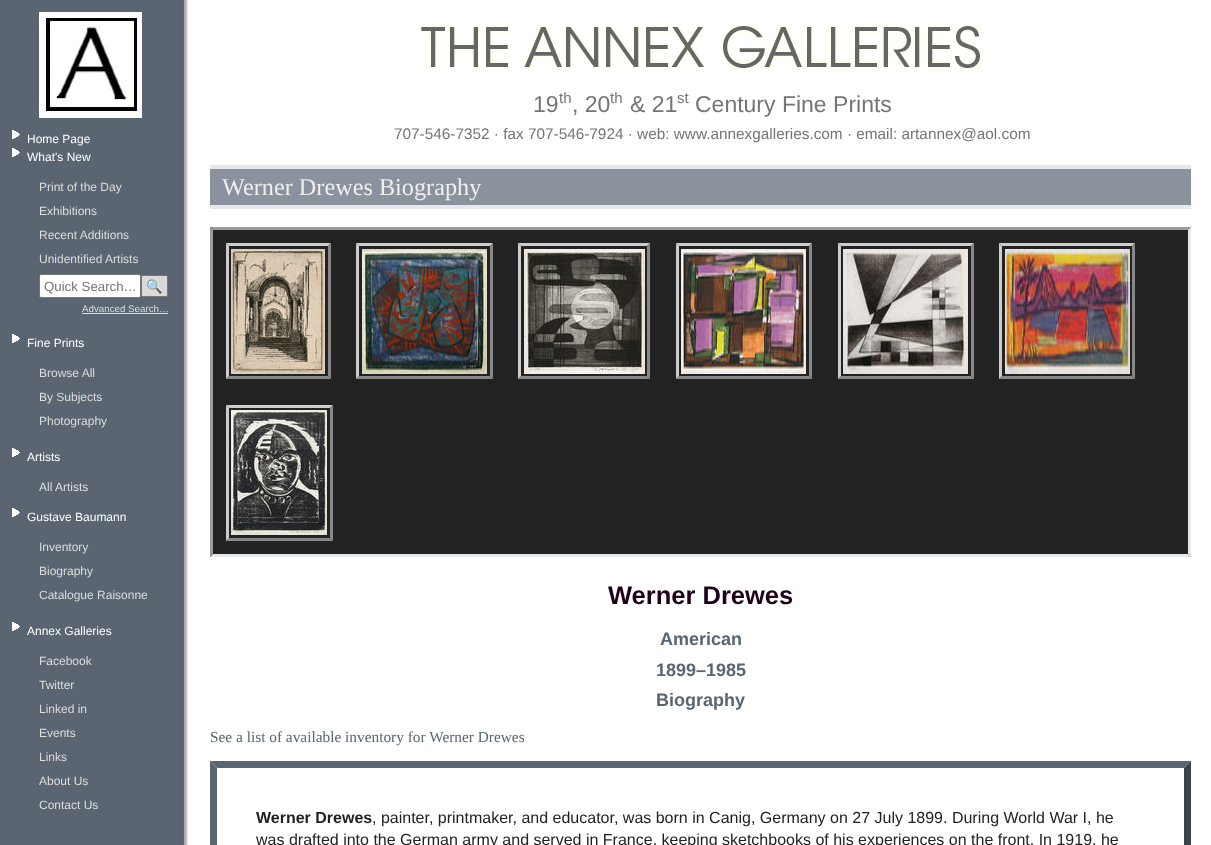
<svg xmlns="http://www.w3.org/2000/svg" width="1211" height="845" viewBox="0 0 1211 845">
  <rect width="100%" height="100%" fill="rgb(255,255,255)"/>
  <image x="0" y="0" width="188" height="845" href="pic1.png"/>
  <image x="39" y="12" width="103" height="106" href="pic2.png"/>
  <image x="12" y="130" width="8" height="9" href="pic3.png"/>
  <text x="27" y="143" font-family="Liberation Sans" font-size="12" fill="rgb(255,255,255)">Home Page</text>
  <image x="12" y="148" width="8" height="9" href="pic3.png"/>
  <text x="27" y="161" font-family="Liberation Sans" font-size="12" fill="rgb(255,255,255)">What's New</text>
  <g font-family="Liberation Sans" font-size="12" fill="rgb(221,221,221)">
    <text x="39" y="191">Print of the Day</text>
    <text x="39" y="215">Exhibitions</text>
    <text x="39" y="239">Recent Additions</text>
    <text x="39" y="263">Unidentified Artists</text>
  </g>
  <rect x="39.5" y="274.5" width="101" height="23" rx="1.5" fill="rgb(255,255,255)" stroke="rgb(118,118,118)"/>
  <text x="44" y="291" font-family="Liberation Sans" font-size="13.25" fill="rgb(117,117,117)">Quick Search…</text>
  <rect x="141.5" y="275.5" width="26" height="21" rx="1.5" fill="rgb(218,218,218)" stroke="rgb(119,119,119)"/>
  <text x="146" y="291" font-family="Noto Color Emoji" font-size="13.25" fill="rgb(255,255,255)">🔍</text>
  <text x="82" y="312" font-family="Liberation Sans" font-size="9.75" fill="rgb(221,221,221)">Advanced Search…</text>
  <rect x="82" y="313" width="86" height="1" fill="rgb(221,221,221)"/>
  <image x="12" y="334" width="8" height="9" href="pic3.png"/>
  <text x="27" y="347" font-family="Liberation Sans" font-size="12" fill="rgb(255,255,255)">Fine Prints</text>
  <g font-family="Liberation Sans" font-size="12" fill="rgb(221,221,221)">
    <text x="39" y="377">Browse All</text>
    <text x="39" y="401">By Subjects</text>
    <text x="39" y="425">Photography</text>
  </g>
  <image x="12" y="448" width="8" height="9" href="pic3.png"/>
  <text x="27" y="461" font-family="Liberation Sans" font-size="12" fill="rgb(255,255,255)">Artists</text>
  <text x="39" y="491" font-family="Liberation Sans" font-size="12" fill="rgb(221,221,221)">All Artists</text>
  <image x="12" y="508" width="8" height="9" href="pic3.png"/>
  <text x="27" y="521" font-family="Liberation Sans" font-size="12" fill="rgb(255,255,255)">Gustave Baumann</text>
  <g font-family="Liberation Sans" font-size="12" fill="rgb(221,221,221)">
    <text x="39" y="551">Inventory</text>
    <text x="39" y="575">Biography</text>
    <text x="39" y="599">Catalogue Raisonne</text>
  </g>
  <image x="12" y="622" width="8" height="9" href="pic3.png"/>
  <text x="27" y="635" font-family="Liberation Sans" font-size="12" fill="rgb(255,255,255)">Annex Galleries</text>
  <g font-family="Liberation Sans" font-size="12" fill="rgb(221,221,221)">
    <text x="39" y="665">Facebook</text>
    <text x="39" y="689">Twitter</text>
    <text x="39" y="713">Linked in</text>
    <text x="39" y="737">Events</text>
    <text x="39" y="761">Links</text>
    <text x="39" y="785">About Us</text>
    <text x="39" y="809">Contact Us</text>
  </g>
  <image x="421" y="23" width="562" height="48" href="pic4.png"/>
  <text x="533" y="112" font-family="Liberation Sans" font-size="23" fill="rgb(117,117,117)">19</text>
  <text x="559" y="103" font-family="Liberation Sans" font-size="15" fill="rgb(117,117,117)">th</text>
  <text x="572" y="112" font-family="Liberation Sans" font-size="23" fill="rgb(117,117,117)">, 20</text>
  <text x="610" y="103" font-family="Liberation Sans" font-size="15" fill="rgb(117,117,117)">th</text>
  <text x="630" y="112" font-family="Liberation Sans" font-size="23" fill="rgb(117,117,117)">&amp; 21</text>
  <text x="677" y="103" font-family="Liberation Sans" font-size="15" fill="rgb(117,117,117)">st</text>
  <text x="695" y="112" font-family="Liberation Sans" font-size="23" fill="rgb(117,117,117)">Century Fine Prints</text>
  <text x="394" y="139" font-family="Liberation Sans" font-size="15.35" fill="rgb(117,117,117)">707-546-7352 · fax 707-546-7924 · web: www.annexgalleries.com · email: artannex@aol.com</text>
  <rect x="210" y="169" width="981" height="36" fill="rgb(138,147,157)"/>
  <rect x="210" y="165" width="981" height="4" fill="rgb(229,232,237)"/>
  <rect x="210" y="205" width="981" height="4" fill="rgb(229,232,237)"/>
  <text x="222" y="195" font-family="Liberation Serif" font-size="24.25" fill="rgb(239,239,239)">Werner Drewes Biography</text>
  <rect x="210" y="227" width="981" height="330" fill="rgb(34,34,34)"/>
  <path d="M210 227H1191L1188 230H213Z" fill="rgb(153,155,158)"/>
  <path d="M1191 227V557L1188 554V230Z" fill="rgb(229,232,237)"/>
  <path d="M1191 557H210L213 554H1188Z" fill="rgb(229,232,237)"/>
  <path d="M210 557V227L213 230V554Z" fill="rgb(153,155,158)"/>
  <path d="M226 243H331L328 246H229Z" fill="rgb(204,204,204)"/>
  <path d="M331 243V379L328 376V246Z" fill="rgb(136,136,136)"/>
  <path d="M331 379H226L229 376H328Z" fill="rgb(136,136,136)"/>
  <path d="M226 379V243L229 246V376Z" fill="rgb(204,204,204)"/>
  <image x="231" y="249" width="94" height="125" href="pic5.png"/>
  <path d="M356 243H493L490 246H359Z" fill="rgb(204,204,204)"/>
  <path d="M493 243V379L490 376V246Z" fill="rgb(136,136,136)"/>
  <path d="M493 379H356L359 376H490Z" fill="rgb(136,136,136)"/>
  <path d="M356 379V243L359 246V376Z" fill="rgb(204,204,204)"/>
  <image x="362" y="249" width="125" height="125" href="pic6.png"/>
  <path d="M518 243H650L647 246H521Z" fill="rgb(204,204,204)"/>
  <path d="M650 243V379L647 376V246Z" fill="rgb(136,136,136)"/>
  <path d="M650 379H518L521 376H647Z" fill="rgb(136,136,136)"/>
  <path d="M518 379V243L521 246V376Z" fill="rgb(204,204,204)"/>
  <image x="524" y="249" width="121" height="125" href="pic7.png"/>
  <path d="M676 243H812L809 246H679Z" fill="rgb(204,204,204)"/>
  <path d="M812 243V379L809 376V246Z" fill="rgb(136,136,136)"/>
  <path d="M812 379H676L679 376H809Z" fill="rgb(136,136,136)"/>
  <path d="M676 379V243L679 246V376Z" fill="rgb(204,204,204)"/>
  <image x="681" y="249" width="125" height="125" href="pic8.png"/>
  <path d="M838 243H974L971 246H841Z" fill="rgb(204,204,204)"/>
  <path d="M974 243V379L971 376V246Z" fill="rgb(136,136,136)"/>
  <path d="M974 379H838L841 376H971Z" fill="rgb(136,136,136)"/>
  <path d="M838 379V243L841 246V376Z" fill="rgb(204,204,204)"/>
  <image x="843" y="249" width="125" height="125" href="pic9.png"/>
  <path d="M999 243H1135L1132 246H1002Z" fill="rgb(204,204,204)"/>
  <path d="M1135 243V379L1132 376V246Z" fill="rgb(136,136,136)"/>
  <path d="M1135 379H999L1002 376H1132Z" fill="rgb(136,136,136)"/>
  <path d="M999 379V243L1002 246V376Z" fill="rgb(204,204,204)"/>
  <image x="1005" y="249" width="125" height="125" href="pic10.png"/>
  <path d="M226 405H333L330 408H229Z" fill="rgb(204,204,204)"/>
  <path d="M333 405V541L330 538V408Z" fill="rgb(136,136,136)"/>
  <path d="M333 541H226L229 538H330Z" fill="rgb(136,136,136)"/>
  <path d="M226 541V405L229 408V538Z" fill="rgb(204,204,204)"/>
  <image x="231" y="410" width="96" height="125" href="pic11.png"/>
  <text x="608" y="604" font-family="Liberation Sans" font-size="25.5" font-weight="bold" fill="rgb(31,1,26)">Werner Drewes</text>
  <g font-family="Liberation Sans" font-size="18" font-weight="bold" fill="rgb(90,101,113)">
    <text x="660" y="645">American</text>
    <text>
      <tspan x="656" y="676">1899–1985</tspan>
      <tspan x="656" y="706">Biography</tspan>
    </text>
  </g>
  <text x="210" y="742" font-family="Liberation Serif" font-size="15.35" fill="rgb(90,101,113)">See a list of available inventory for Werner Drewes</text>
  <path d="M210 761H1191L1184 768H217Z" fill="rgb(90,101,113)"/>
  <path d="M1191 761V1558L1184 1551V768Z" fill="rgb(60,67,75)"/>
  <path d="M210 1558V761L217 768V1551Z" fill="rgb(90,101,113)"/>
  <text x="256" y="823" font-family="Liberation Sans" font-size="16" font-weight="bold" fill="rgb(34,34,34)">Werner Drewes</text>
  <g font-family="Liberation Sans" font-size="16" fill="rgb(34,34,34)">
    <text x="372" y="823">, painter, printmaker, and educator, was born in Canig, Germany on 27 July 1899. During World War I, he</text>
    <text x="256" y="845">was drafted into the German army and served in France, keeping sketchbooks of his experiences on the front. In 1919, he</text>
  </g>
</svg>
